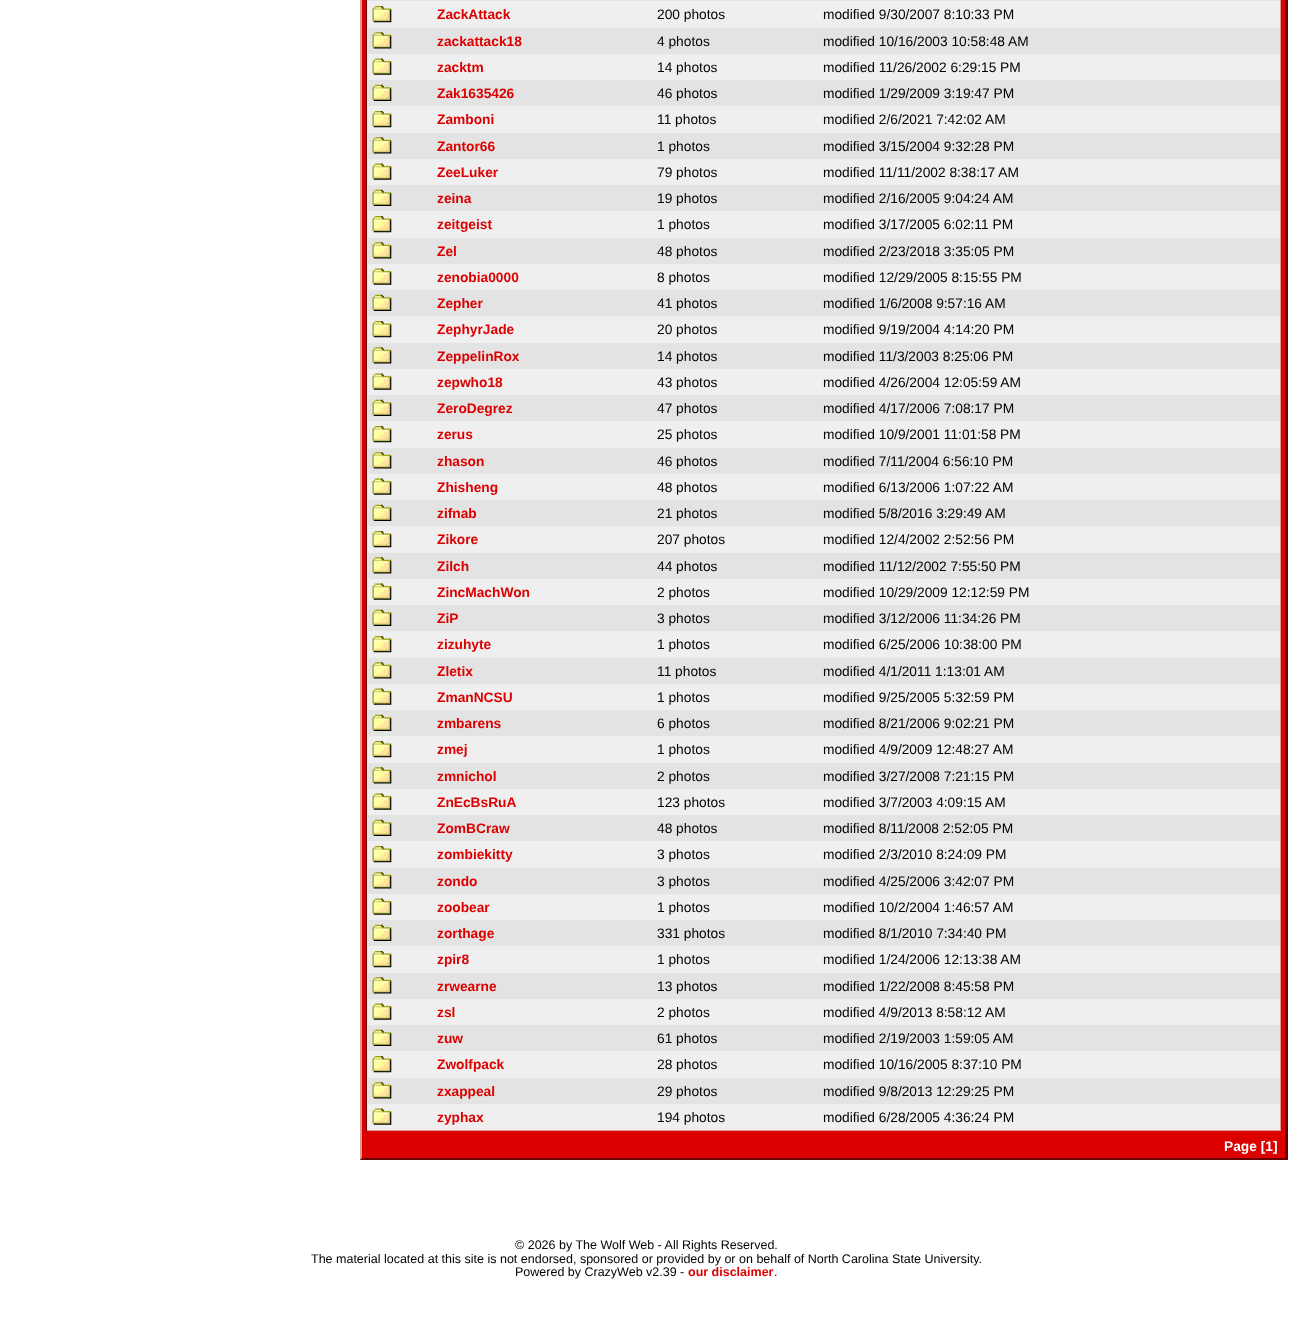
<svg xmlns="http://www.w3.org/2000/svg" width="1292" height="1339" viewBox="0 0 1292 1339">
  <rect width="100%" height="100%" fill="rgb(255,255,255)"/>
  <rect x="360" y="0" width="928" height="1160" fill="rgb(221,0,0)"/>
  <path d="M1288-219V1160L1285 1158V-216Z" fill="rgb(102,0,0)"/>
  <path d="M1288 1160H360L362 1158H1285Z" fill="rgb(102,0,0)"/>
  <path d="M360 1160V-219L362-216V1158Z" fill="rgb(221,153,153)"/>
  <rect x="367" y="0" width="913" height="1130" fill="rgb(239,239,239)"/>
  <rect x="1280" y="0" width="1" height="1131" fill="rgb(221,153,153)"/>
  <rect x="366" y="1130" width="915" height="1" fill="rgb(221,153,153)"/>
  <rect x="366" y="0" width="1" height="1131" fill="rgb(102,0,0)"/>
  <rect x="368" y="0" width="912" height="1" fill="rgb(227,227,227)"/>
  <image x="372" y="6" width="20" height="17" href="pic1.png"/>
  <text x="437" y="19" font-family="Liberation Sans" font-size="13.75" font-weight="bold" fill="rgb(221,0,0)">ZackAttack</text>
  <g font-family="Liberation Sans" font-size="13.75" fill="rgb(0,0,0)">
    <text x="657" y="19">200 photos</text>
    <text x="823" y="19">modified 9/30/2007 8:10:33 PM</text>
  </g>
  <rect x="368" y="28" width="912" height="26" fill="rgb(227,227,227)"/>
  <image x="372" y="32" width="20" height="17" href="pic2.png"/>
  <text x="437" y="46" font-family="Liberation Sans" font-size="13.75" font-weight="bold" fill="rgb(221,0,0)">zackattack18</text>
  <g font-family="Liberation Sans" font-size="13.75" fill="rgb(0,0,0)">
    <text x="657" y="46">4 photos</text>
    <text x="823" y="46">modified 10/16/2003 10:58:48 AM</text>
  </g>
  <image x="372" y="58" width="20" height="17" href="pic3.png"/>
  <text x="437" y="72" font-family="Liberation Sans" font-size="13.75" font-weight="bold" fill="rgb(221,0,0)">zacktm</text>
  <g font-family="Liberation Sans" font-size="13.75" fill="rgb(0,0,0)">
    <text x="657" y="72">14 photos</text>
    <text x="823" y="72">modified 11/26/2002 6:29:15 PM</text>
  </g>
  <rect x="368" y="80" width="912" height="26" fill="rgb(227,227,227)"/>
  <image x="372" y="84" width="20" height="17" href="pic4.png"/>
  <text x="437" y="98" font-family="Liberation Sans" font-size="13.75" font-weight="bold" fill="rgb(221,0,0)">Zak1635426</text>
  <g font-family="Liberation Sans" font-size="13.75" fill="rgb(0,0,0)">
    <text x="657" y="98">46 photos</text>
    <text x="823" y="98">modified 1/29/2009 3:19:47 PM</text>
  </g>
  <image x="372" y="111" width="20" height="17" href="pic1.png"/>
  <text x="437" y="124" font-family="Liberation Sans" font-size="13.75" font-weight="bold" fill="rgb(221,0,0)">Zamboni</text>
  <g font-family="Liberation Sans" font-size="13.75" fill="rgb(0,0,0)">
    <text x="657" y="124">11 photos</text>
    <text x="823" y="124">modified 2/6/2021 7:42:02 AM</text>
  </g>
  <rect x="368" y="133" width="912" height="26" fill="rgb(227,227,227)"/>
  <image x="372" y="137" width="20" height="17" href="pic2.png"/>
  <text x="437" y="151" font-family="Liberation Sans" font-size="13.75" font-weight="bold" fill="rgb(221,0,0)">Zantor66</text>
  <g font-family="Liberation Sans" font-size="13.75" fill="rgb(0,0,0)">
    <text x="657" y="151">1 photos</text>
    <text x="823" y="151">modified 3/15/2004 9:32:28 PM</text>
  </g>
  <image x="372" y="163" width="20" height="17" href="pic3.png"/>
  <text x="437" y="177" font-family="Liberation Sans" font-size="13.75" font-weight="bold" fill="rgb(221,0,0)">ZeeLuker</text>
  <g font-family="Liberation Sans" font-size="13.75" fill="rgb(0,0,0)">
    <text x="657" y="177">79 photos</text>
    <text x="823" y="177">modified 11/11/2002 8:38:17 AM</text>
  </g>
  <rect x="368" y="185" width="912" height="26" fill="rgb(227,227,227)"/>
  <image x="372" y="189" width="20" height="17" href="pic4.png"/>
  <text x="437" y="203" font-family="Liberation Sans" font-size="13.75" font-weight="bold" fill="rgb(221,0,0)">zeina</text>
  <g font-family="Liberation Sans" font-size="13.75" fill="rgb(0,0,0)">
    <text x="657" y="203">19 photos</text>
    <text x="823" y="203">modified 2/16/2005 9:04:24 AM</text>
  </g>
  <image x="372" y="216" width="20" height="17" href="pic1.png"/>
  <text x="437" y="229" font-family="Liberation Sans" font-size="13.75" font-weight="bold" fill="rgb(221,0,0)">zeitgeist</text>
  <g font-family="Liberation Sans" font-size="13.75" fill="rgb(0,0,0)">
    <text x="657" y="229">1 photos</text>
    <text x="823" y="229">modified 3/17/2005 6:02:11 PM</text>
  </g>
  <rect x="368" y="238" width="912" height="26" fill="rgb(227,227,227)"/>
  <image x="372" y="242" width="20" height="17" href="pic2.png"/>
  <text x="437" y="256" font-family="Liberation Sans" font-size="13.75" font-weight="bold" fill="rgb(221,0,0)">Zel</text>
  <g font-family="Liberation Sans" font-size="13.75" fill="rgb(0,0,0)">
    <text x="657" y="256">48 photos</text>
    <text x="823" y="256">modified 2/23/2018 3:35:05 PM</text>
  </g>
  <image x="372" y="268" width="20" height="17" href="pic3.png"/>
  <text x="437" y="282" font-family="Liberation Sans" font-size="13.75" font-weight="bold" fill="rgb(221,0,0)">zenobia0000</text>
  <g font-family="Liberation Sans" font-size="13.75" fill="rgb(0,0,0)">
    <text x="657" y="282">8 photos</text>
    <text x="823" y="282">modified 12/29/2005 8:15:55 PM</text>
  </g>
  <rect x="368" y="290" width="912" height="26" fill="rgb(227,227,227)"/>
  <image x="372" y="294" width="20" height="17" href="pic4.png"/>
  <text x="437" y="308" font-family="Liberation Sans" font-size="13.75" font-weight="bold" fill="rgb(221,0,0)">Zepher</text>
  <g font-family="Liberation Sans" font-size="13.75" fill="rgb(0,0,0)">
    <text x="657" y="308">41 photos</text>
    <text x="823" y="308">modified 1/6/2008 9:57:16 AM</text>
  </g>
  <image x="372" y="321" width="20" height="17" href="pic1.png"/>
  <text x="437" y="334" font-family="Liberation Sans" font-size="13.75" font-weight="bold" fill="rgb(221,0,0)">ZephyrJade</text>
  <g font-family="Liberation Sans" font-size="13.75" fill="rgb(0,0,0)">
    <text x="657" y="334">20 photos</text>
    <text x="823" y="334">modified 9/19/2004 4:14:20 PM</text>
  </g>
  <rect x="368" y="343" width="912" height="26" fill="rgb(227,227,227)"/>
  <image x="372" y="347" width="20" height="17" href="pic2.png"/>
  <text x="437" y="361" font-family="Liberation Sans" font-size="13.75" font-weight="bold" fill="rgb(221,0,0)">ZeppelinRox</text>
  <g font-family="Liberation Sans" font-size="13.75" fill="rgb(0,0,0)">
    <text x="657" y="361">14 photos</text>
    <text x="823" y="361">modified 11/3/2003 8:25:06 PM</text>
  </g>
  <image x="372" y="373" width="20" height="17" href="pic3.png"/>
  <text x="437" y="387" font-family="Liberation Sans" font-size="13.75" font-weight="bold" fill="rgb(221,0,0)">zepwho18</text>
  <g font-family="Liberation Sans" font-size="13.75" fill="rgb(0,0,0)">
    <text x="657" y="387">43 photos</text>
    <text x="823" y="387">modified 4/26/2004 12:05:59 AM</text>
  </g>
  <rect x="368" y="395" width="912" height="26" fill="rgb(227,227,227)"/>
  <image x="372" y="399" width="20" height="17" href="pic4.png"/>
  <text x="437" y="413" font-family="Liberation Sans" font-size="13.75" font-weight="bold" fill="rgb(221,0,0)">ZeroDegrez</text>
  <g font-family="Liberation Sans" font-size="13.75" fill="rgb(0,0,0)">
    <text x="657" y="413">47 photos</text>
    <text x="823" y="413">modified 4/17/2006 7:08:17 PM</text>
  </g>
  <image x="372" y="426" width="20" height="17" href="pic1.png"/>
  <text x="437" y="439" font-family="Liberation Sans" font-size="13.75" font-weight="bold" fill="rgb(221,0,0)">zerus</text>
  <g font-family="Liberation Sans" font-size="13.75" fill="rgb(0,0,0)">
    <text x="657" y="439">25 photos</text>
    <text x="823" y="439">modified 10/9/2001 11:01:58 PM</text>
  </g>
  <rect x="368" y="448" width="912" height="26" fill="rgb(227,227,227)"/>
  <image x="372" y="452" width="20" height="17" href="pic2.png"/>
  <text x="437" y="466" font-family="Liberation Sans" font-size="13.75" font-weight="bold" fill="rgb(221,0,0)">zhason</text>
  <g font-family="Liberation Sans" font-size="13.75" fill="rgb(0,0,0)">
    <text x="657" y="466">46 photos</text>
    <text x="823" y="466">modified 7/11/2004 6:56:10 PM</text>
  </g>
  <image x="372" y="478" width="20" height="17" href="pic3.png"/>
  <text x="437" y="492" font-family="Liberation Sans" font-size="13.75" font-weight="bold" fill="rgb(221,0,0)">Zhisheng</text>
  <g font-family="Liberation Sans" font-size="13.75" fill="rgb(0,0,0)">
    <text x="657" y="492">48 photos</text>
    <text x="823" y="492">modified 6/13/2006 1:07:22 AM</text>
  </g>
  <rect x="368" y="500" width="912" height="26" fill="rgb(227,227,227)"/>
  <image x="372" y="504" width="20" height="17" href="pic4.png"/>
  <text x="437" y="518" font-family="Liberation Sans" font-size="13.75" font-weight="bold" fill="rgb(221,0,0)">zifnab</text>
  <g font-family="Liberation Sans" font-size="13.75" fill="rgb(0,0,0)">
    <text x="657" y="518">21 photos</text>
    <text x="823" y="518">modified 5/8/2016 3:29:49 AM</text>
  </g>
  <image x="372" y="531" width="20" height="17" href="pic1.png"/>
  <text x="437" y="544" font-family="Liberation Sans" font-size="13.75" font-weight="bold" fill="rgb(221,0,0)">Zikore</text>
  <g font-family="Liberation Sans" font-size="13.75" fill="rgb(0,0,0)">
    <text x="657" y="544">207 photos</text>
    <text x="823" y="544">modified 12/4/2002 2:52:56 PM</text>
  </g>
  <rect x="368" y="553" width="912" height="26" fill="rgb(227,227,227)"/>
  <image x="372" y="557" width="20" height="17" href="pic2.png"/>
  <text x="437" y="571" font-family="Liberation Sans" font-size="13.75" font-weight="bold" fill="rgb(221,0,0)">Zilch</text>
  <g font-family="Liberation Sans" font-size="13.75" fill="rgb(0,0,0)">
    <text x="657" y="571">44 photos</text>
    <text x="823" y="571">modified 11/12/2002 7:55:50 PM</text>
  </g>
  <image x="372" y="583" width="20" height="17" href="pic3.png"/>
  <text x="437" y="597" font-family="Liberation Sans" font-size="13.75" font-weight="bold" fill="rgb(221,0,0)">ZincMachWon</text>
  <g font-family="Liberation Sans" font-size="13.75" fill="rgb(0,0,0)">
    <text x="657" y="597">2 photos</text>
    <text x="823" y="597">modified 10/29/2009 12:12:59 PM</text>
  </g>
  <rect x="368" y="605" width="912" height="26" fill="rgb(227,227,227)"/>
  <image x="372" y="609" width="20" height="17" href="pic4.png"/>
  <text x="437" y="623" font-family="Liberation Sans" font-size="13.75" font-weight="bold" fill="rgb(221,0,0)">ZiP</text>
  <g font-family="Liberation Sans" font-size="13.75" fill="rgb(0,0,0)">
    <text x="657" y="623">3 photos</text>
    <text x="823" y="623">modified 3/12/2006 11:34:26 PM</text>
  </g>
  <image x="372" y="636" width="20" height="17" href="pic1.png"/>
  <text x="437" y="649" font-family="Liberation Sans" font-size="13.75" font-weight="bold" fill="rgb(221,0,0)">zizuhyte</text>
  <g font-family="Liberation Sans" font-size="13.75" fill="rgb(0,0,0)">
    <text x="657" y="649">1 photos</text>
    <text x="823" y="649">modified 6/25/2006 10:38:00 PM</text>
  </g>
  <rect x="368" y="658" width="912" height="26" fill="rgb(227,227,227)"/>
  <image x="372" y="662" width="20" height="17" href="pic5.png"/>
  <text x="437" y="676" font-family="Liberation Sans" font-size="13.75" font-weight="bold" fill="rgb(221,0,0)">Zletix</text>
  <g font-family="Liberation Sans" font-size="13.75" fill="rgb(0,0,0)">
    <text x="657" y="676">11 photos</text>
    <text x="823" y="676">modified 4/1/2011 1:13:01 AM</text>
  </g>
  <image x="372" y="688" width="20" height="17" href="pic3.png"/>
  <text x="437" y="702" font-family="Liberation Sans" font-size="13.75" font-weight="bold" fill="rgb(221,0,0)">ZmanNCSU</text>
  <g font-family="Liberation Sans" font-size="13.75" fill="rgb(0,0,0)">
    <text x="657" y="702">1 photos</text>
    <text x="823" y="702">modified 9/25/2005 5:32:59 PM</text>
  </g>
  <rect x="368" y="710" width="912" height="26" fill="rgb(227,227,227)"/>
  <image x="372" y="714" width="20" height="17" href="pic4.png"/>
  <text x="437" y="728" font-family="Liberation Sans" font-size="13.75" font-weight="bold" fill="rgb(221,0,0)">zmbarens</text>
  <g font-family="Liberation Sans" font-size="13.75" fill="rgb(0,0,0)">
    <text x="657" y="728">6 photos</text>
    <text x="823" y="728">modified 8/21/2006 9:02:21 PM</text>
  </g>
  <image x="372" y="741" width="20" height="17" href="pic1.png"/>
  <text x="437" y="754" font-family="Liberation Sans" font-size="13.75" font-weight="bold" fill="rgb(221,0,0)">zmej</text>
  <g font-family="Liberation Sans" font-size="13.75" fill="rgb(0,0,0)">
    <text x="657" y="754">1 photos</text>
    <text x="823" y="754">modified 4/9/2009 12:48:27 AM</text>
  </g>
  <rect x="368" y="763" width="912" height="26" fill="rgb(227,227,227)"/>
  <image x="372" y="767" width="20" height="17" href="pic2.png"/>
  <text x="437" y="781" font-family="Liberation Sans" font-size="13.75" font-weight="bold" fill="rgb(221,0,0)">zmnichol</text>
  <g font-family="Liberation Sans" font-size="13.75" fill="rgb(0,0,0)">
    <text x="657" y="781">2 photos</text>
    <text x="823" y="781">modified 3/27/2008 7:21:15 PM</text>
  </g>
  <image x="372" y="793" width="20" height="17" href="pic3.png"/>
  <text x="437" y="807" font-family="Liberation Sans" font-size="13.75" font-weight="bold" fill="rgb(221,0,0)">ZnEcBsRuA</text>
  <g font-family="Liberation Sans" font-size="13.75" fill="rgb(0,0,0)">
    <text x="657" y="807">123 photos</text>
    <text x="823" y="807">modified 3/7/2003 4:09:15 AM</text>
  </g>
  <rect x="368" y="815" width="912" height="26" fill="rgb(227,227,227)"/>
  <image x="372" y="819" width="20" height="17" href="pic4.png"/>
  <text x="437" y="833" font-family="Liberation Sans" font-size="13.75" font-weight="bold" fill="rgb(221,0,0)">ZomBCraw</text>
  <g font-family="Liberation Sans" font-size="13.75" fill="rgb(0,0,0)">
    <text x="657" y="833">48 photos</text>
    <text x="823" y="833">modified 8/11/2008 2:52:05 PM</text>
  </g>
  <image x="372" y="846" width="20" height="17" href="pic1.png"/>
  <text x="437" y="859" font-family="Liberation Sans" font-size="13.75" font-weight="bold" fill="rgb(221,0,0)">zombiekitty</text>
  <g font-family="Liberation Sans" font-size="13.75" fill="rgb(0,0,0)">
    <text x="657" y="859">3 photos</text>
    <text x="823" y="859">modified 2/3/2010 8:24:09 PM</text>
  </g>
  <rect x="368" y="868" width="912" height="26" fill="rgb(227,227,227)"/>
  <image x="372" y="872" width="20" height="17" href="pic2.png"/>
  <text x="437" y="886" font-family="Liberation Sans" font-size="13.75" font-weight="bold" fill="rgb(221,0,0)">zondo</text>
  <g font-family="Liberation Sans" font-size="13.75" fill="rgb(0,0,0)">
    <text x="657" y="886">3 photos</text>
    <text x="823" y="886">modified 4/25/2006 3:42:07 PM</text>
  </g>
  <image x="372" y="898" width="20" height="17" href="pic3.png"/>
  <text x="437" y="912" font-family="Liberation Sans" font-size="13.75" font-weight="bold" fill="rgb(221,0,0)">zoobear</text>
  <g font-family="Liberation Sans" font-size="13.75" fill="rgb(0,0,0)">
    <text x="657" y="912">1 photos</text>
    <text x="823" y="912">modified 10/2/2004 1:46:57 AM</text>
  </g>
  <rect x="368" y="920" width="912" height="26" fill="rgb(227,227,227)"/>
  <image x="372" y="924" width="20" height="17" href="pic4.png"/>
  <text x="437" y="938" font-family="Liberation Sans" font-size="13.75" font-weight="bold" fill="rgb(221,0,0)">zorthage</text>
  <g font-family="Liberation Sans" font-size="13.75" fill="rgb(0,0,0)">
    <text x="657" y="938">331 photos</text>
    <text x="823" y="938">modified 8/1/2010 7:34:40 PM</text>
  </g>
  <image x="372" y="951" width="20" height="17" href="pic1.png"/>
  <text x="437" y="964" font-family="Liberation Sans" font-size="13.75" font-weight="bold" fill="rgb(221,0,0)">zpir8</text>
  <g font-family="Liberation Sans" font-size="13.75" fill="rgb(0,0,0)">
    <text x="657" y="964">1 photos</text>
    <text x="823" y="964">modified 1/24/2006 12:13:38 AM</text>
  </g>
  <rect x="368" y="973" width="912" height="26" fill="rgb(227,227,227)"/>
  <image x="372" y="977" width="20" height="17" href="pic2.png"/>
  <text x="437" y="991" font-family="Liberation Sans" font-size="13.75" font-weight="bold" fill="rgb(221,0,0)">zrwearne</text>
  <g font-family="Liberation Sans" font-size="13.75" fill="rgb(0,0,0)">
    <text x="657" y="991">13 photos</text>
    <text x="823" y="991">modified 1/22/2008 8:45:58 PM</text>
  </g>
  <image x="372" y="1003" width="20" height="17" href="pic3.png"/>
  <text x="437" y="1017" font-family="Liberation Sans" font-size="13.75" font-weight="bold" fill="rgb(221,0,0)">zsl</text>
  <g font-family="Liberation Sans" font-size="13.75" fill="rgb(0,0,0)">
    <text x="657" y="1017">2 photos</text>
    <text x="823" y="1017">modified 4/9/2013 8:58:12 AM</text>
  </g>
  <rect x="368" y="1025" width="912" height="26" fill="rgb(227,227,227)"/>
  <image x="372" y="1029" width="20" height="17" href="pic4.png"/>
  <text x="437" y="1043" font-family="Liberation Sans" font-size="13.75" font-weight="bold" fill="rgb(221,0,0)">zuw</text>
  <g font-family="Liberation Sans" font-size="13.75" fill="rgb(0,0,0)">
    <text x="657" y="1043">61 photos</text>
    <text x="823" y="1043">modified 2/19/2003 1:59:05 AM</text>
  </g>
  <image x="372" y="1056" width="20" height="17" href="pic1.png"/>
  <text x="437" y="1069" font-family="Liberation Sans" font-size="13.75" font-weight="bold" fill="rgb(221,0,0)">Zwolfpack</text>
  <g font-family="Liberation Sans" font-size="13.75" fill="rgb(0,0,0)">
    <text x="657" y="1069">28 photos</text>
    <text x="823" y="1069">modified 10/16/2005 8:37:10 PM</text>
  </g>
  <rect x="368" y="1078" width="912" height="26" fill="rgb(227,227,227)"/>
  <image x="372" y="1082" width="20" height="17" href="pic2.png"/>
  <text x="437" y="1096" font-family="Liberation Sans" font-size="13.75" font-weight="bold" fill="rgb(221,0,0)">zxappeal</text>
  <g font-family="Liberation Sans" font-size="13.75" fill="rgb(0,0,0)">
    <text x="657" y="1096">29 photos</text>
    <text x="823" y="1096">modified 9/8/2013 12:29:25 PM</text>
  </g>
  <image x="372" y="1108" width="20" height="17" href="pic3.png"/>
  <text x="437" y="1122" font-family="Liberation Sans" font-size="13.75" font-weight="bold" fill="rgb(221,0,0)">zyphax</text>
  <g font-family="Liberation Sans" font-size="13.75" fill="rgb(0,0,0)">
    <text x="657" y="1122">194 photos</text>
    <text x="823" y="1122">modified 6/28/2005 4:36:24 PM</text>
  </g>
  <text x="1224" y="1151" font-family="Liberation Sans" font-size="13.75" font-weight="bold" fill="rgb(255,255,255)">Page [1]</text>
  <g font-family="Liberation Sans" font-size="12.5" fill="rgb(0,0,0)">
    <text x="515" y="1249">© 2026 by The Wolf Web - All Rights Reserved.</text>
    <text x="311" y="1263">The material located at this site is not endorsed, sponsored or provided by or on behalf of North Carolina State University.</text>
    <text x="515" y="1276">Powered by CrazyWeb v2.39 -</text>
  </g>
  <text x="688" y="1276" font-family="Liberation Sans" font-size="12.5" font-weight="bold" fill="rgb(221,0,0)">our disclaimer</text>
  <text x="774" y="1276" font-family="Liberation Sans" font-size="12.5" fill="rgb(0,0,0)">.</text>
</svg>
